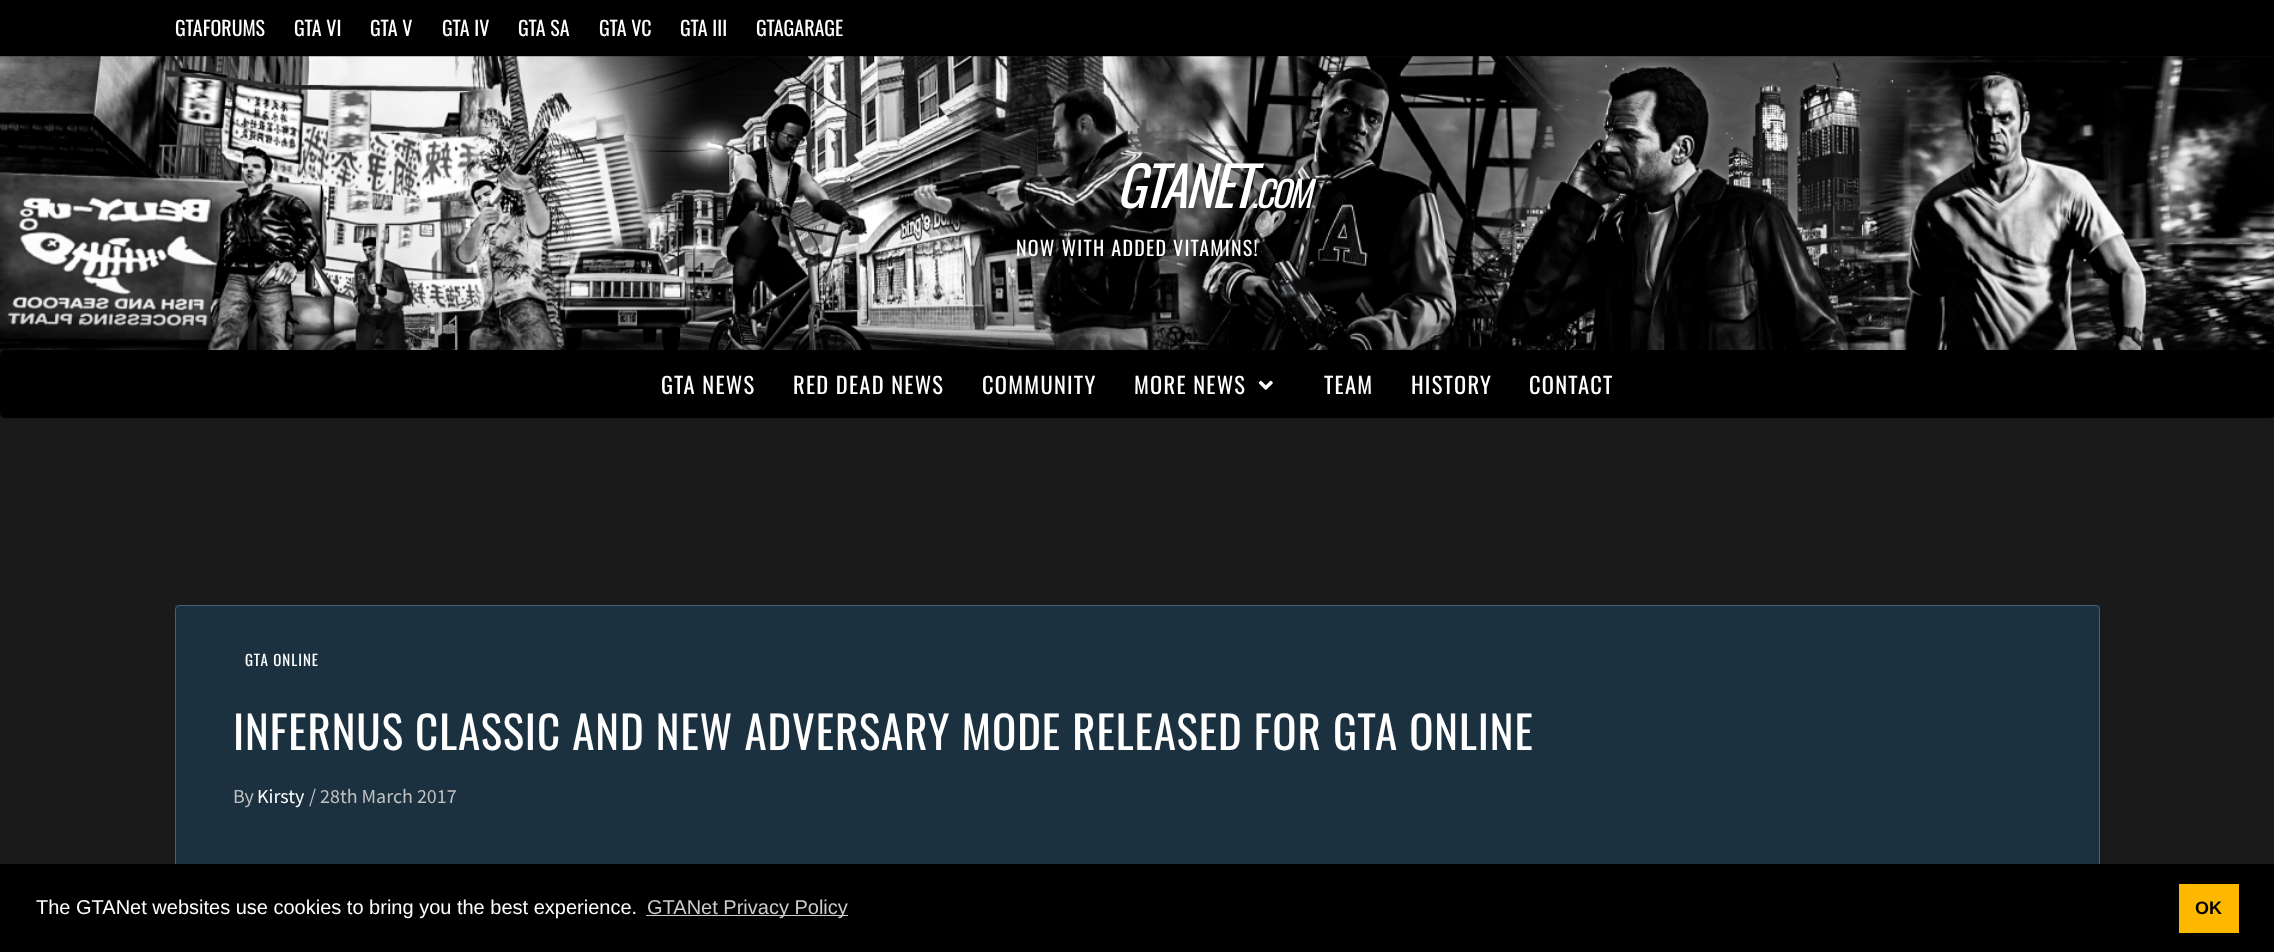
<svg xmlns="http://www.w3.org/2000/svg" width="2274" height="952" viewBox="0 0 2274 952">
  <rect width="100%" height="100%" fill="rgb(26,26,26)"/>
  <rect x="0" y="0" width="2274" height="56" fill="rgb(0,0,0)"/>
  <g font-family="Oswald" font-size="20" fill="rgb(255,255,255)">
    <text x="175" y="36">GTAFORUMS</text>
    <text x="294" y="36">GTA VI</text>
    <text x="370" y="36">GTA V</text>
    <text x="442" y="36">GTA IV</text>
    <text x="518" y="36">GTA SA</text>
    <text x="599" y="36">GTA VC</text>
    <text x="680" y="36">GTA III</text>
    <text x="756" y="36">GTAGARAGE</text>
  </g>
  <image x="0" y="56" width="2274" height="294" href="pic1.png"/>
  <text x="1116" y="208" font-family="Oswald" font-size="55" font-style="italic" letter-spacing="-2.5" fill="rgb(255,255,255)">GTANET</text>
  <text x="1251" y="208" font-family="Oswald" font-size="36" font-style="italic" letter-spacing="-2.5" fill="rgb(255,255,255)">.COM</text>
  <text x="1016" y="256" font-family="Oswald" font-size="20" letter-spacing="1.25" fill="rgb(255,255,255)">NOW WITH ADDED VITAMINS!</text>
  <rect x="0" y="350" width="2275" height="68" rx="5" fill="rgb(0,0,0)"/>
  <g font-family="Oswald" font-size="22.5" letter-spacing="1.25" fill="rgb(255,255,255)">
    <text x="661" y="394">GTA NEWS</text>
    <text x="793" y="394">RED DEAD NEWS</text>
    <text x="982" y="394">COMMUNITY</text>
    <text x="1134" y="394">MORE NEWS</text>
  </g>
  <image x="1258" y="380" width="15" height="10" href="pic2.png"/>
  <g font-family="Oswald" font-size="22.5" letter-spacing="1.25" fill="rgb(255,255,255)">
    <text x="1324" y="394">TEAM</text>
    <text x="1411" y="394">HISTORY</text>
    <text x="1529" y="394">CONTACT</text>
  </g>
  <rect x="175" y="605" width="1925" height="259" fill="rgb(28,49,64)"/>
  <rect x="175.5" y="605.5" width="1924" height="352" rx="4.5" fill="none" stroke="rgb(69,97,115)"/>
  <text x="245" y="666" font-family="Oswald" font-size="15" letter-spacing="1" fill="rgb(255,255,255)">GTA ONLINE</text>
  <text x="233" y="750" font-family="Oswald" font-size="45" letter-spacing="0.9" fill="rgb(255,255,255)">INFERNUS CLASSIC AND NEW ADVERSARY MODE RELEASED FOR GTA ONLINE</text>
  <text x="233" y="803" font-family="Source Sans Pro" font-size="20" fill="rgb(192,192,192)">By</text>
  <text x="257" y="803" font-family="Source Sans Pro" font-size="20" fill="rgb(255,255,255)">Kirsty</text>
  <text x="309" y="803" font-family="Source Sans Pro" font-size="20" fill="rgb(192,192,192)">/ 28th March 2017</text>
  <rect x="0" y="864" width="2274" height="88" fill="rgb(0,0,0)"/>
  <text x="36" y="914" font-family="Liberation Sans" font-size="20" fill="rgb(255,255,255)">The GTANet websites use cookies to bring you the best experience.</text>
  <rect x="646" y="915" width="202" height="1" fill="rgb(204,204,204)"/>
  <text x="647" y="914" font-family="Liberation Sans" font-size="20" fill="rgb(204,204,204)">GTANet Privacy Policy</text>
  <rect x="2179" y="884" width="60" height="49" fill="rgb(255,184,0)"/>
  <text x="2195" y="914" font-family="Liberation Sans" font-size="18" font-weight="bold" fill="rgb(0,0,0)">OK</text>
</svg>
